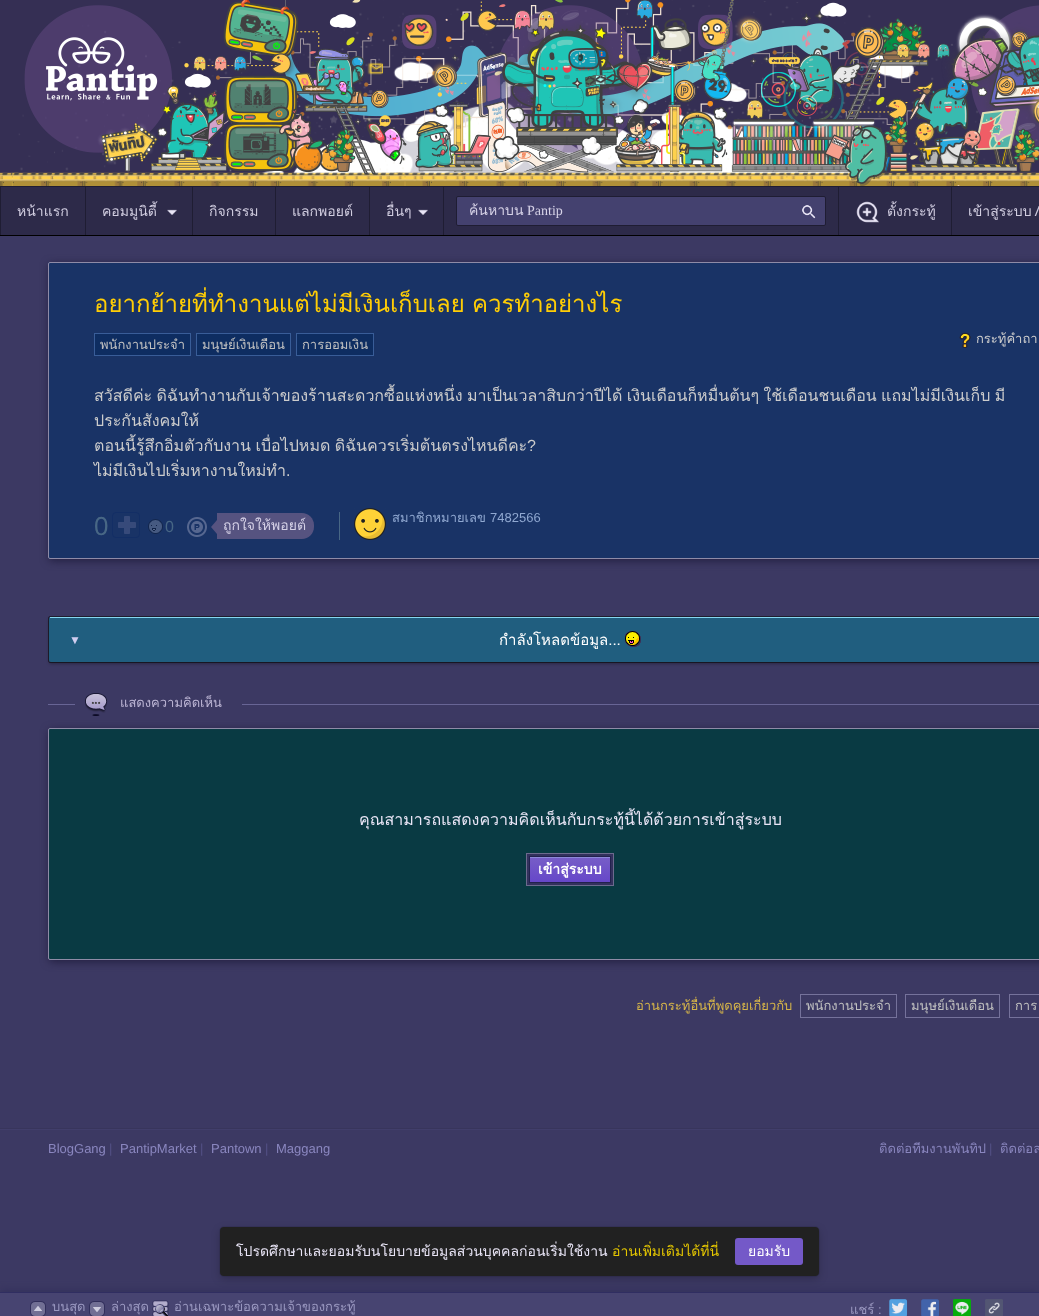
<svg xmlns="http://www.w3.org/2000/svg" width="1039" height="1316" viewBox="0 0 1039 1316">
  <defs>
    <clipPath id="clip1"><path d="M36 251H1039V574H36ZM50 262H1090C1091 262 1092 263 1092 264V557C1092 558 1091 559 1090 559H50C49 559 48 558 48 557V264C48 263 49 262 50 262Z" clip-rule="evenodd"/></clipPath>
    <linearGradient id="g1" gradientUnits="userSpaceOnUse" x1="530" y1="857" x2="530" y2="882"><stop offset="0" stop-color="rgb(119,94,199)"/><stop offset="1" stop-color="rgb(102,71,201)"/></linearGradient>
  </defs>
  <rect width="100%" height="100%" fill="rgb(60,57,99)"/>
  <image x="0" y="0" width="1039" height="186" href="pic1.png"/>
  <rect x="0" y="235" width="1039" height="1" fill="rgb(0,0,0)"/>
  <image x="24" y="0" width="1015" height="186" href="pic2.png"/>
  <rect x="1" y="187" width="1038" height="48" fill="rgb(45,42,73)"/>
  <rect x="0" y="186" width="1039" height="1" fill="rgb(31,29,51)"/>
  <rect x="0" y="186" width="1" height="49" fill="rgb(31,29,51)"/>
  <rect x="85" y="187" width="1" height="48" fill="rgb(31,29,51)"/>
  <text x="17" y="216" font-family="Loma" font-size="14" fill="rgb(209,205,224)">หน้าแรก</text>
  <rect x="192" y="187" width="1" height="48" fill="rgb(31,29,51)"/>
  <text x="102" y="216" font-family="Loma" font-size="14" fill="rgb(209,205,224)">คอมมูนิตี้</text>
  <image x="167" y="209" width="10" height="6" href="pic3.png"/>
  <rect x="275" y="187" width="1" height="48" fill="rgb(31,29,51)"/>
  <text x="209" y="216" font-family="Loma" font-size="14" fill="rgb(209,205,224)">กิจกรรม</text>
  <rect x="369" y="187" width="1" height="48" fill="rgb(31,29,51)"/>
  <text x="292" y="216" font-family="Loma" font-size="14" fill="rgb(209,205,224)">แลกพอยต์</text>
  <rect x="443" y="187" width="1" height="48" fill="rgb(31,29,51)"/>
  <text x="386" y="216" font-family="Loma" font-size="14" fill="rgb(209,205,224)">อื่นๆ</text>
  <image x="418" y="209" width="10" height="6" href="pic3.png"/>
  <rect x="838" y="187" width="1" height="48" fill="rgb(31,29,51)"/>
  <rect x="456.5" y="196.5" width="369" height="29" rx="1.5" fill="rgb(68,65,111)" stroke="rgb(31,29,51)"/>
  <text x="469" y="215" font-family="Loma" font-size="14" fill="rgb(214,210,231)">ค้นหาบน</text>
  <text x="527" y="215" font-family="Liberation Serif" font-size="14" fill="rgb(214,210,231)">Pantip</text>
  <image x="802" y="205" width="14" height="14" href="pic4.png"/>
  <rect x="951" y="187" width="1" height="48" fill="rgb(31,29,51)"/>
  <image x="856" y="201" width="23" height="22" href="pic5.png"/>
  <g font-family="Loma" font-size="14" fill="rgb(209,205,224)">
    <text x="887" y="216">ตั้งกระทู้</text>
    <text x="968" y="216" word-spacing="-1">เข้าสู่ระบบ /</text>
  </g>
  <rect x="48" y="262" width="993" height="297" rx="2" fill="rgb(25,51,102)"/>
  <g clip-path="url(#clip1)">
    <rect x="49" y="264" width="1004" height="297" rx="2" fill="rgb(34,31,64)" filter="blur(4px)"/>
  </g>
  <rect x="48.5" y="262.5" width="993" height="296" rx="1.5" fill="none" stroke="rgb(142,139,167)"/>
  <text x="94" y="312" word-spacing="-1" font-family="Loma" font-size="24" fill="rgb(255,205,5)">อยากย้ายที่ทำงานแต่ไม่มีเงินเก็บเลย ควรทำอย่างไร</text>
  <rect x="94.5" y="333.5" width="96" height="22" fill="rgb(14,45,97)" stroke="rgb(57,93,152)"/>
  <text x="100" y="349" font-family="Loma" font-size="13" fill="rgb(192,192,192)">พนักงานประจำ</text>
  <rect x="196.5" y="333.5" width="94" height="22" fill="rgb(14,45,97)" stroke="rgb(57,93,152)"/>
  <text x="202" y="349" font-family="Loma" font-size="13" fill="rgb(192,192,192)">มนุษย์เงินเดือน</text>
  <rect x="296.5" y="333.5" width="77" height="22" fill="rgb(14,45,97)" stroke="rgb(57,93,152)"/>
  <text x="302" y="349" font-family="Loma" font-size="13" fill="rgb(192,192,192)">การออมเงิน</text>
  <image x="959" y="332" width="12" height="16" href="pic6.png"/>
  <text x="976" y="343" font-family="Loma" font-size="13" fill="rgb(204,204,204)">กระทู้คำถา</text>
  <g font-family="Loma" font-size="16" fill="rgb(204,204,204)">
    <text>
      <tspan x="94" y="401" word-spacing="-1">สวัสดีค่ะ ดิฉันทำงานกับเจ้าของร้านสะดวกซื้อแห่งหนึ่ง มาเป็นเวลาสิบกว่าปีได้ เงินเดือนก็หมื่นต้นๆ ใช้เดือนชนเดือน แถมไม่มีเงินเก็บ มี</tspan>
      <tspan x="94" y="426">ประกันสังคมให้</tspan>
      <tspan x="94" y="451" word-spacing="-1">ตอนนี้รู้สึกอิ่มตัวกับงาน เบื่อไปหมด ดิฉันควรเริ่มต้นตรงไหนดีคะ</tspan>
    </text>
  </g>
  <text x="527" y="451" font-family="Liberation Sans" font-size="16" fill="rgb(204,204,204)">?</text>
  <text x="94" y="476" font-family="Loma" font-size="16" fill="rgb(204,204,204)">ไม่มีเงินไปเริ่มหางานใหม่ทำ</text>
  <text x="286" y="476" font-family="Liberation Sans" font-size="16" fill="rgb(204,204,204)">.</text>
  <text x="94" y="535" font-family="Liberation Sans" font-size="26" fill="rgb(72,103,133)">0</text>
  <rect x="112.5" y="512.5" width="27" height="25" rx="3.5" fill="none" stroke="rgb(19,46,101)"/>
  <image x="118" y="516" width="18" height="18" href="pic7.png"/>
  <image x="148" y="519" width="15" height="15" href="pic8.png"/>
  <text x="165" y="532" font-family="Liberation Sans" font-size="16" fill="rgb(72,103,133)">0</text>
  <rect x="339" y="512" width="1" height="28" fill="rgb(72,103,133)"/>
  <image x="187" y="517" width="20" height="20" href="pic9.png"/>
  <path d="M217 520V534L211 527Z" fill="rgb(86,83,128)"/>
  <path d="M217 513H302C308.5 513 314 518.5 314 525V527C314 533.5 308.5 539 302 539H217Z" fill="rgb(86,83,128)"/>
  <text x="223" y="530" font-family="Loma" font-size="14" fill="rgb(214,210,231)">ถูกใจให้พอยต์</text>
  <image x="354" y="508" width="32" height="32" href="pic10.png"/>
  <text x="392" y="522" font-family="Loma" font-size="13" fill="rgb(144,168,209)">สมาชิกหมายเลข</text>
  <text x="490" y="522" font-family="Liberation Sans" font-size="13" fill="rgb(144,168,209)">7482566</text>
  <rect x="48.5" y="616.5" width="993" height="46" rx="1.5" fill="none" stroke="rgb(33,30,46)"/>
  <rect x="49" y="619" width="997" height="45" rx="2" fill="rgba(0,0,0,0.3)" filter="blur(1.5px)"/>
  <rect x="49" y="617" width="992" height="45" rx="2" fill="rgb(32,94,127)"/>
  <rect x="50" y="617" width="989" height="1" fill="rgb(133,214,241)"/>
  <text x="69" y="644" font-family="Liberation Sans" font-size="12" fill="rgb(208,205,240)">▼</text>
  <text x="499" y="645" font-family="Loma" font-size="15" fill="rgb(255,255,255)">กำลังโหลดข้อมูล...</text>
  <image x="625" y="631" width="16" height="16" href="pic11.png"/>
  <rect x="48" y="704" width="991" height="1" fill="rgb(104,101,149)"/>
  <rect x="75" y="704" width="167" height="1" fill="rgb(60,57,99)"/>
  <image x="85" y="693" width="23" height="23" href="pic12.png"/>
  <text x="120" y="707" font-family="Loma" font-size="13" fill="rgb(189,182,213)">แสดงความคิดเห็น</text>
  <rect x="49" y="730" width="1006" height="232" rx="4" fill="rgb(34,31,64)" filter="blur(4px)"/>
  <rect x="48" y="728" width="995" height="232" rx="4" fill="rgb(9,58,67)"/>
  <rect x="48.5" y="728.5" width="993" height="231" rx="1.5" fill="none" stroke="rgb(142,139,167)"/>
  <text x="359" y="825" font-family="Loma" font-size="16" fill="rgb(233,229,246)">คุณสามารถแสดงความคิดเห็นกับกระทู้นี้ได้ด้วยการเข้าสู่ระบบ</text>
  <rect x="526.5" y="853.5" width="87" height="32" fill="rgb(51,49,93)" stroke="rgb(108,106,141)"/>
  <rect x="530" y="858" width="80" height="24" fill="url(#g1)"/>
  <rect x="529.5" y="856.5" width="81" height="26" fill="none" stroke="rgb(34,33,77)"/>
  <rect x="530" y="857" width="80" height="1" fill="rgb(141,137,216)"/>
  <text x="538" y="874" font-family="Loma" font-size="14" font-weight="bold" fill="rgb(255,255,255)">เข้าสู่ระบบ</text>
  <text x="636" y="1010" font-family="Loma" font-size="13" fill="rgb(214,181,73)">อ่านกระทู้อื่นที่พูดคุยเกี่ยวกับ</text>
  <rect x="800.5" y="994.5" width="96" height="23" fill="none" stroke="rgb(117,114,155)"/>
  <text x="806" y="1010" font-family="Loma" font-size="13" fill="rgb(192,192,192)">พนักงานประจำ</text>
  <rect x="905.5" y="994.5" width="94" height="23" fill="none" stroke="rgb(117,114,155)"/>
  <text x="911" y="1010" font-family="Loma" font-size="13" fill="rgb(192,192,192)">มนุษย์เงินเดือน</text>
  <rect x="1009.5" y="994.5" width="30" height="23" fill="none" stroke="rgb(117,114,155)"/>
  <text x="1015" y="1010" font-family="Loma" font-size="13" fill="rgb(192,192,192)">การ</text>
  <rect x="0" y="1128" width="1039" height="1" fill="rgb(56,53,92)"/>
  <rect x="0" y="1129" width="1039" height="1" fill="rgb(65,62,107)"/>
  <text x="48" y="1153" font-family="Liberation Sans" font-size="13" fill="rgb(138,134,191)">BlogGang</text>
  <text x="109" y="1153" font-family="Liberation Sans" font-size="13" fill="rgb(83,80,133)">|</text>
  <text x="120" y="1153" font-family="Liberation Sans" font-size="13" fill="rgb(138,134,191)">PantipMarket</text>
  <text x="200" y="1153" font-family="Liberation Sans" font-size="13" fill="rgb(83,80,133)">|</text>
  <text x="211" y="1153" font-family="Liberation Sans" font-size="13" fill="rgb(138,134,191)">Pantown</text>
  <text x="265" y="1153" font-family="Liberation Sans" font-size="13" fill="rgb(83,80,133)">|</text>
  <text x="276" y="1153" font-family="Liberation Sans" font-size="13" fill="rgb(138,134,191)">Maggang</text>
  <text x="879" y="1153" font-family="Loma" font-size="13" fill="rgb(138,134,191)">ติดต่อทีมงานพันทิป</text>
  <text x="989" y="1153" font-family="Liberation Sans" font-size="13" fill="rgb(83,80,133)">|</text>
  <text x="1000" y="1153" font-family="Loma" font-size="13" fill="rgb(138,134,191)">ติดต่อล</text>
  <rect x="219.5" y="1226.5" width="600" height="50" rx="4.5" fill="none" stroke="rgb(55,52,91)"/>
  <rect x="220" y="1230" width="599" height="49" rx="4" fill="rgba(0,0,0,0.2)" filter="blur(4px)"/>
  <rect x="220" y="1227" width="599" height="49" rx="4" fill="rgb(33,33,33)"/>
  <text x="236" y="1256" font-family="Loma" font-size="14" fill="rgb(233,229,246)">โปรดศึกษาและยอมรับนโยบายข้อมูลส่วนบุคคลก่อนเริ่มใช้งาน</text>
  <text x="612" y="1256" font-family="Loma" font-size="14" fill="rgb(229,199,0)">อ่านเพิ่มเติมได้ที่นี่</text>
  <rect x="735" y="1238" width="68" height="27" rx="3" fill="rgb(116,89,200)"/>
  <text x="748" y="1256" font-family="Loma" font-size="14" fill="rgb(255,255,255)">ยอมรับ</text>
  <rect x="0" y="1291" width="1039" height="24" fill="rgb(49,47,90)" filter="blur(4px)"/>
  <rect x="0" y="1293" width="1039" height="23" fill="rgb(71,68,113)"/>
  <rect x="0" y="1292" width="1039" height="1" fill="rgb(48,46,97)"/>
  <image x="30" y="1301" width="16" height="15" href="pic13.png"/>
  <text x="52" y="1311" font-family="Loma" font-size="13" fill="rgb(155,153,193)">บนสุด</text>
  <image x="89" y="1301" width="16" height="15" href="pic14.png"/>
  <text x="111" y="1311" font-family="Loma" font-size="13" fill="rgb(155,153,193)">ล่างสุด</text>
  <image x="152" y="1300" width="17" height="16" href="pic15.png"/>
  <g font-family="Loma" font-size="13" fill="rgb(155,153,193)">
    <text x="174" y="1311">อ่านเฉพาะข้อความเจ้าของกระทู้</text>
    <text x="850" y="1314">แชร์</text>
  </g>
  <text x="878" y="1314" font-family="Liberation Sans" font-size="13" fill="rgb(155,153,193)">:</text>
  <image x="889" y="1299" width="19" height="17" href="pic16.png"/>
  <image x="921" y="1299" width="18" height="17" href="pic17.png"/>
  <image x="953" y="1299" width="18" height="17" href="pic18.png"/>
  <image x="985" y="1299" width="18" height="17" href="pic19.png"/>
</svg>
